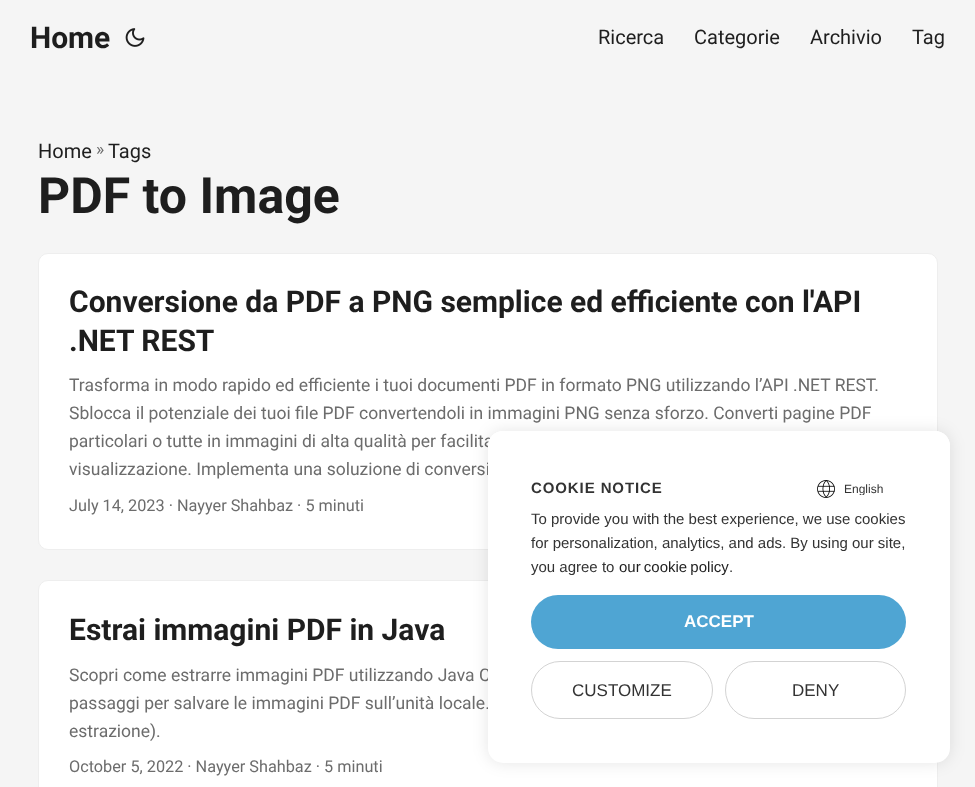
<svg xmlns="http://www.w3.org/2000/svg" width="975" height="787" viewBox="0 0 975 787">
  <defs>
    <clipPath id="clip1"><rect x="844" y="481" width="62" height="14"/></clipPath>
  </defs>
  <rect width="100%" height="100%" fill="rgb(245,245,245)"/>
  <text x="30" y="48" font-family="Roboto" font-size="30" font-weight="bold" fill="rgb(30,30,30)">Home</text>
  <image x="125" y="28" width="20" height="19" href="pic1.png"/>
  <g font-family="Roboto" font-size="20" fill="rgb(30,30,30)">
    <text x="598" y="44">Ricerca</text>
    <text x="694" y="44">Categorie</text>
    <text x="810" y="44">Archivio</text>
    <text x="912" y="44">Tag</text>
    <text x="38" y="158">Home</text>
  </g>
  <text x="96" y="155" font-family="Roboto" font-size="17.5" fill="rgb(108,108,108)">»</text>
  <text x="108" y="158" font-family="Roboto" font-size="20" fill="rgb(30,30,30)">Tags</text>
  <text x="38" y="213" font-family="Roboto" font-size="50" font-weight="bold" fill="rgb(30,30,30)">PDF to Image</text>
  <rect x="38.5" y="253.5" width="899" height="296" rx="9.5" fill="rgb(255,255,255)" stroke="rgb(238,238,238)"/>
  <g font-family="Roboto" font-size="30" font-weight="bold" fill="rgb(30,30,30)">
    <text>
      <tspan x="69" y="312">Conversione da PDF a PNG semplice ed efficiente con l'API</tspan>
      <tspan x="69" y="351">.NET REST</tspan>
    </text>
  </g>
  <g font-family="Roboto" font-size="17.5" fill="rgb(108,108,108)">
    <text>
      <tspan x="69" y="391">Trasforma in modo rapido ed efficiente i tuoi documenti PDF in formato PNG utilizzando l’API .NET REST.</tspan>
      <tspan x="69" y="419">Sblocca il potenziale dei tuoi file PDF convertendoli in immagini PNG senza sforzo. Converti pagine PDF</tspan>
      <tspan x="69" y="447">particolari o tutte in immagini di alta qualità per facilita</tspan>
      <tspan x="69" y="475">visualizzazione. Implementa una soluzione di conversi</tspan>
    </text>
  </g>
  <text x="69" y="511" font-family="Roboto" font-size="16.25" fill="rgb(108,108,108)">July 14, 2023 · Nayyer Shahbaz · 5 minuti</text>
  <rect x="38.5" y="580.5" width="899" height="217" rx="9.5" fill="rgb(255,255,255)" stroke="rgb(238,238,238)"/>
  <text x="69" y="640" font-family="Roboto" font-size="30" font-weight="bold" fill="rgb(30,30,30)">Estrai immagini PDF in Java</text>
  <g font-family="Roboto" font-size="17.5" fill="rgb(108,108,108)">
    <text>
      <tspan x="69" y="681">Scopri come estrarre immagini PDF utilizzando Java C</tspan>
      <tspan x="69" y="709">passaggi per salvare le immagini PDF sull’unità locale.</tspan>
      <tspan x="69" y="737">estrazione).</tspan>
    </text>
  </g>
  <text x="69" y="772" font-family="Roboto" font-size="16.25" fill="rgb(108,108,108)">October 5, 2022 · Nayyer Shahbaz · 5 minuti</text>
  <rect x="488" y="431" width="462" height="332" rx="15" fill="rgba(0,0,0,0.1)" filter="blur(8px)"/>
  <rect x="488" y="431" width="462" height="332" rx="15" fill="rgb(255,255,255)"/>
  <path d="M503 431H935C943.5 431 950 437.5 950 446V501H488V446C488 437.5 494.5 431 503 431Z" fill="rgb(255,255,255)"/>
  <text x="531" y="493" font-family="Liberation Sans" font-size="15" font-weight="bold" letter-spacing="0.9" fill="rgb(51,51,51)">COOKIE NOTICE</text>
  <image x="817" y="480" width="18" height="18" href="pic2.png"/>
  <g clip-path="url(#clip1)">
    <text x="844" y="493" font-family="Liberation Sans" font-size="12" fill="rgb(51,51,51)">English</text>
  </g>
  <g font-family="Liberation Sans" font-size="15" fill="rgb(51,51,51)">
    <text>
      <tspan x="531" y="524">To provide you with the best experience, we use cookies</tspan>
      <tspan x="531" y="548">for personalization, analytics, and ads. By using our site,</tspan>
      <tspan x="531" y="572">you agree to</tspan>
    </text>
  </g>
  <text x="619" y="572" word-spacing="-1" font-family="Liberation Sans" font-size="15" fill="rgb(30,30,30)">our cookie policy</text>
  <text x="729" y="572" font-family="Liberation Sans" font-size="15" fill="rgb(51,51,51)">.</text>
  <rect x="531" y="595" width="375" height="54" rx="27" fill="rgb(79,165,211)"/>
  <text x="684" y="627" font-family="Liberation Sans" font-size="17" font-weight="bold" fill="rgb(255,255,255)">ACCEPT</text>
  <rect x="531.5" y="661.5" width="181" height="57" rx="28.5" fill="none" stroke="rgb(211,211,211)"/>
  <text x="572" y="696" font-family="Liberation Sans" font-size="17" fill="rgb(51,51,51)">CUSTOMIZE</text>
  <rect x="725.5" y="661.5" width="180" height="57" rx="28.5" fill="none" stroke="rgb(211,211,211)"/>
  <text x="792" y="696" font-family="Liberation Sans" font-size="17" fill="rgb(51,51,51)">DENY</text>
</svg>
